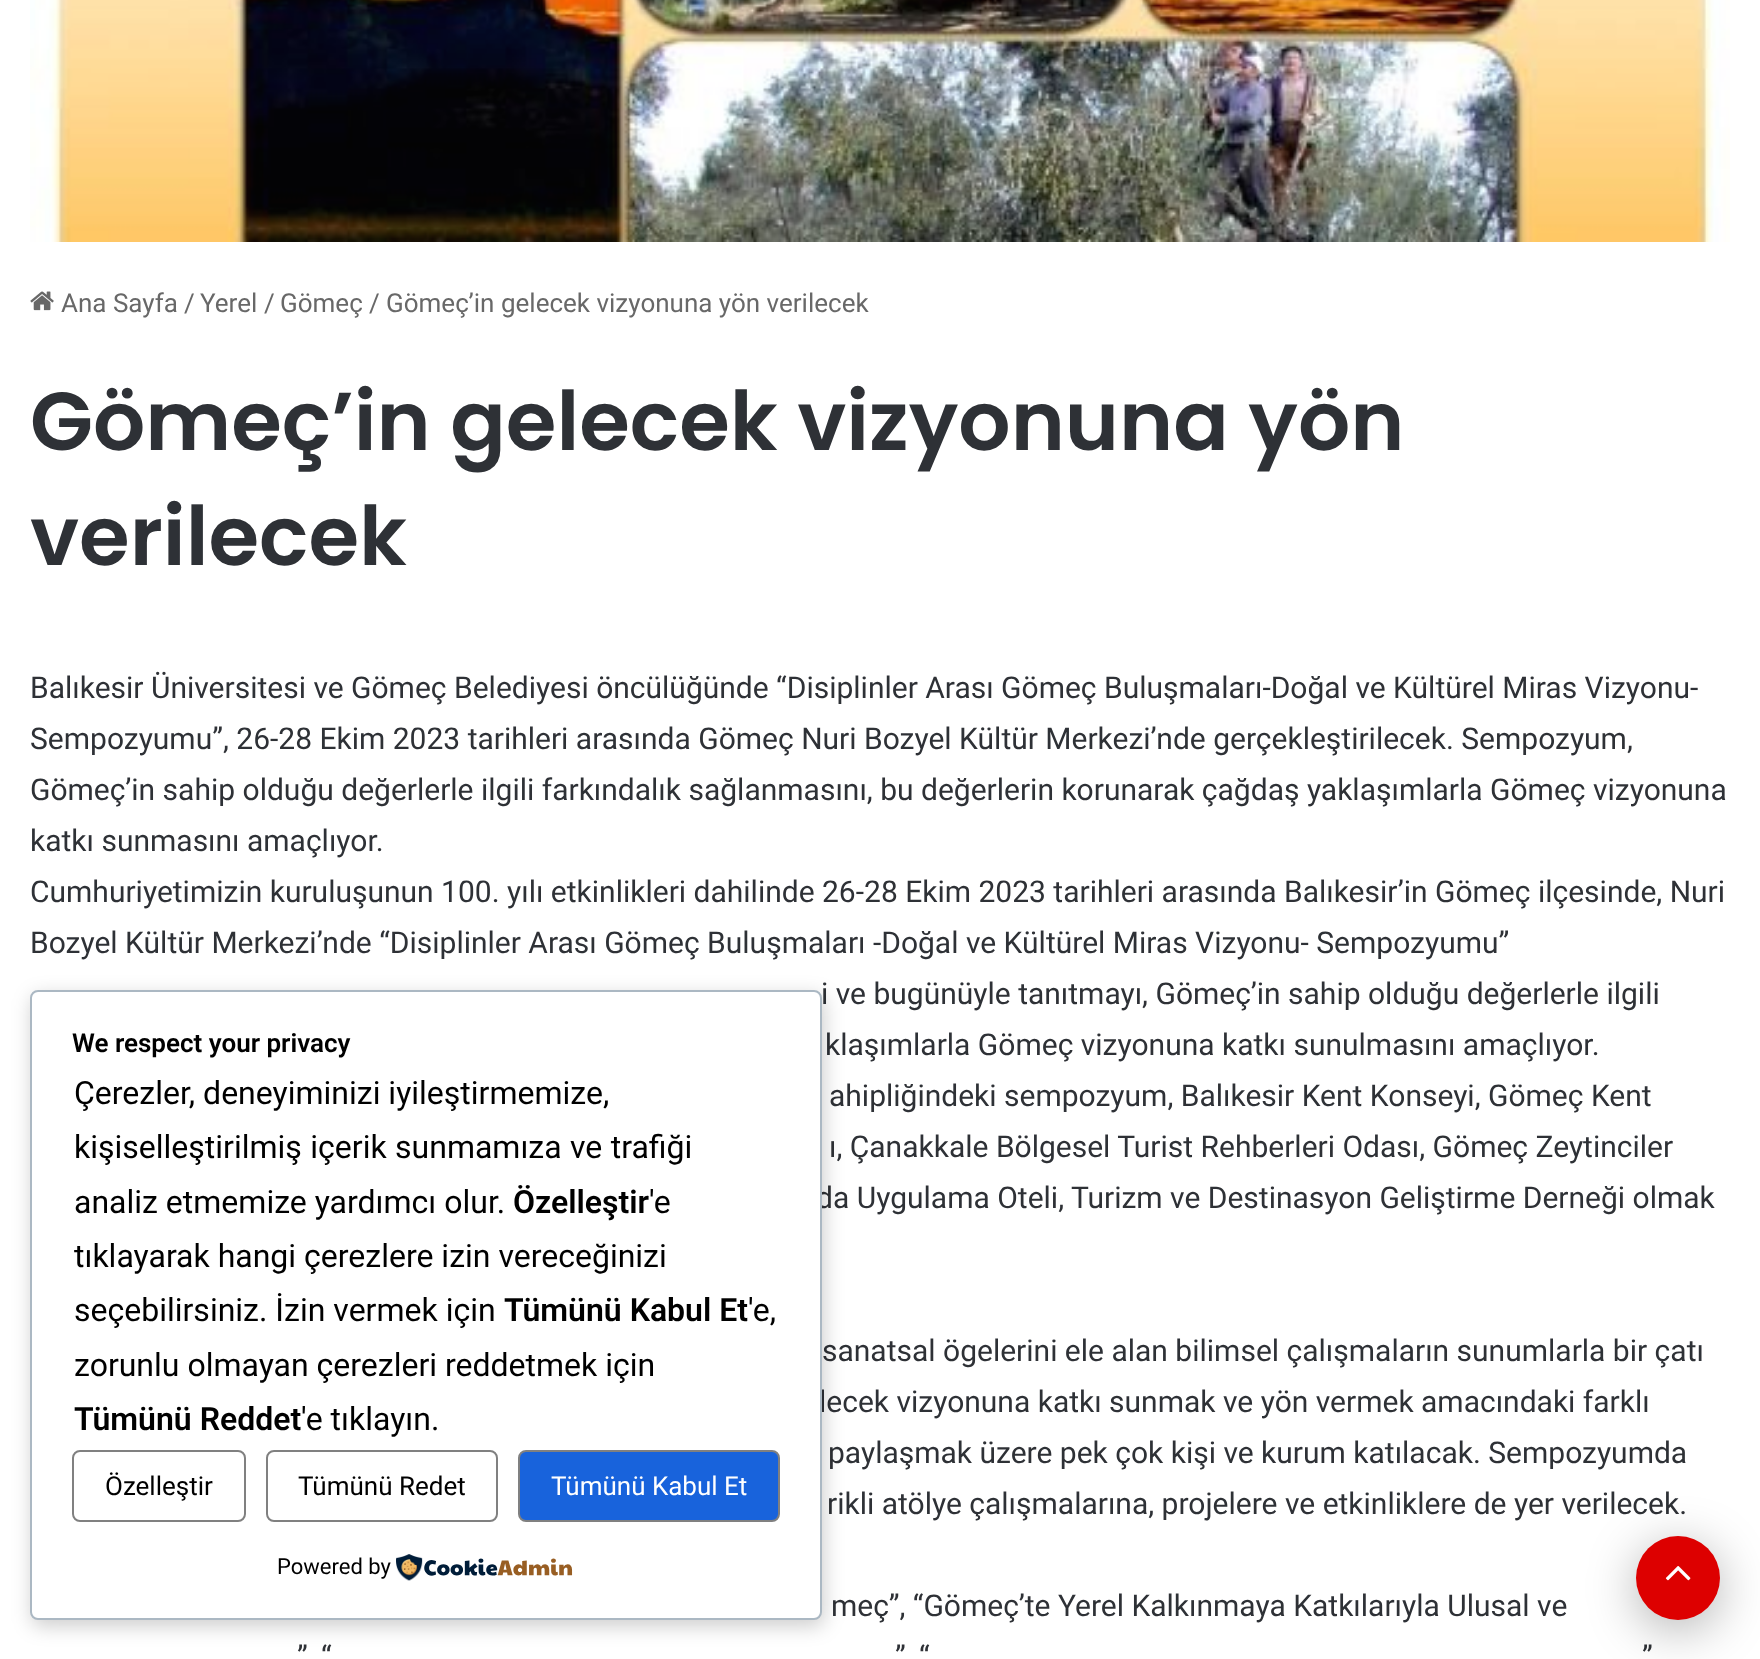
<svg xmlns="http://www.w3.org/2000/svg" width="1760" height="1659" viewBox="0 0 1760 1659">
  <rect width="100%" height="100%" fill="rgb(255,255,255)"/>
  <image x="30" y="0" width="1700" height="242" href="pic1.png"/>
  <image x="30" y="291" width="24" height="20" href="pic2.png"/>
  <g font-family="Roboto" font-size="26" fill="rgb(104,104,104)">
    <text x="61" y="312">Ana Sayfa</text>
    <text x="184" y="312">/</text>
    <text x="200" y="312">Yerel</text>
    <text x="264" y="312">/</text>
    <text x="280" y="312">Gömeç</text>
    <text x="369" y="312">/</text>
    <text x="386" y="312">Gömeç’in gelecek vizyonuna yön verilecek</text>
  </g>
  <g font-family="Poppins" font-size="82" font-weight="600" fill="rgb(46,49,54)">
    <text>
      <tspan x="30" y="450">Gömeç’in gelecek vizyonuna yön</tspan>
      <tspan x="30" y="565">verilecek</tspan>
    </text>
  </g>
  <g font-family="Roboto" font-size="30" fill="rgb(46,49,54)">
    <text>
      <tspan x="30" y="698">Balıkesir Üniversitesi ve Gömeç Belediyesi öncülüğünde “Disiplinler Arası Gömeç Buluşmaları-Doğal ve Kültürel Miras Vizyonu-</tspan>
      <tspan x="30" y="749">Sempozyumu”, 26-28 Ekim 2023 tarihleri arasında Gömeç Nuri Bozyel Kültür Merkezi’nde gerçekleştirilecek. Sempozyum,</tspan>
      <tspan x="30" y="800">Gömeç’in sahip olduğu değerlerle ilgili farkındalık sağlanmasını, bu değerlerin korunarak çağdaş yaklaşımlarla Gömeç vizyonuna</tspan>
      <tspan x="30" y="851">katkı sunmasını amaçlıyor.</tspan>
      <tspan x="30" y="902">Cumhuriyetimizin kuruluşunun 100. yılı etkinlikleri dahilinde 26-28 Ekim 2023 tarihleri arasında Balıkesir’in Gömeç ilçesinde, Nuri</tspan>
      <tspan x="30" y="953">Bozyel Kültür Merkezi’nde “Disiplinler Arası Gömeç Buluşmaları -Doğal ve Kültürel Miras Vizyonu- Sempozyumu”</tspan>
    </text>
    <text x="821" y="1004">i ve bugünüyle tanıtmayı, Gömeç’in sahip olduğu değerlerle ilgili</text>
    <text x="825" y="1055">klaşımlarla Gömeç vizyonuna katkı sunulmasını amaçlıyor.</text>
    <text>
      <tspan x="829" y="1106">ahipliğindeki sempozyum, Balıkesir Kent Konseyi, Gömeç Kent</tspan>
      <tspan x="829" y="1157">ı, Çanakkale Bölgesel Turist Rehberleri Odası, Gömeç Zeytinciler</tspan>
    </text>
    <text x="816" y="1208">da Uygulama Oteli, Turizm ve Destinasyon Geliştirme Derneği olmak</text>
    <text x="822" y="1361">sanatsal ögelerini ele alan bilimsel çalışmaların sunumlarla bir çatı</text>
    <text x="819" y="1412">lecek vizyonuna katkı sunmak ve yön vermek amacındaki farklı</text>
    <text x="828" y="1463">paylaşmak üzere pek çok kişi ve kurum katılacak. Sempozyumda</text>
    <text x="827" y="1514">rikli atölye çalışmalarına, projelere ve etkinliklere de yer verilecek.</text>
    <text x="831" y="1616">meç”, “Gömeç’te Yerel Kalkınmaya Katkılarıyla Ulusal ve</text>
    <text x="297" y="1667">”, “</text>
    <text x="895" y="1667">”, “</text>
    <text x="1642" y="1667">”</text>
  </g>
  <rect x="1636" y="1546" width="84" height="84" rx="42" fill="rgba(0,0,0,0.3)" filter="blur(25px)"/>
  <circle cx="1678" cy="1578" r="42" fill="rgb(221,0,0)"/>
  <image x="1665" y="1566" width="26" height="15" href="pic3.png"/>
  <rect x="32" y="996" width="792" height="630" rx="8" fill="rgba(0,0,0,0.2)" filter="blur(10px)"/>
  <rect x="31" y="991" width="790" height="628" rx="7" fill="rgb(255,255,255)" stroke="rgb(171,184,195)" stroke-width="2"/>
  <text x="72" y="1052" font-family="Roboto" font-size="26" font-weight="600" fill="rgb(0,0,0)">We respect your privacy</text>
  <g font-family="Roboto" font-size="32" fill="rgb(0,0,0)">
    <text>
      <tspan x="74" y="1104">Çerezler, deneyiminizi iyileştirmemize,</tspan>
      <tspan x="74" y="1158" word-spacing="0.5">kişiselleştirilmiş içerik sunmamıza ve trafiği</tspan>
      <tspan x="74" y="1213">analiz etmemize yardımcı olur.</tspan>
    </text>
  </g>
  <text x="513" y="1213" font-family="'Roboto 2'" font-size="32" font-weight="600" fill="rgb(0,0,0)">Özelleştir</text>
  <g font-family="Roboto" font-size="32" fill="rgb(0,0,0)">
    <text x="649" y="1213">'e</text>
    <text>
      <tspan x="74" y="1267">tıklayarak hangi çerezlere izin vereceğinizi</tspan>
      <tspan x="74" y="1321">seçebilirsiniz. İzin vermek için</tspan>
    </text>
  </g>
  <text x="504" y="1321" font-family="'Roboto 2'" font-size="32" font-weight="600" fill="rgb(0,0,0)">Tümünü Kabul Et</text>
  <g font-family="Roboto" font-size="32" fill="rgb(0,0,0)">
    <text x="748" y="1321">'e,</text>
    <text x="74" y="1376">zorunlu olmayan çerezleri reddetmek için</text>
  </g>
  <text x="74" y="1430" font-family="'Roboto 2'" font-size="32" font-weight="600" fill="rgb(0,0,0)">Tümünü Reddet</text>
  <text x="301" y="1430" font-family="Roboto" font-size="32" fill="rgb(0,0,0)">'e tıklayın.</text>
  <rect x="73" y="1451" width="172" height="70" rx="7" fill="none" stroke="rgb(128,128,128)" stroke-width="2"/>
  <text x="105" y="1495" font-family="Roboto" font-size="26" fill="rgb(0,0,0)">Özelleştir</text>
  <rect x="267" y="1451" width="230" height="70" rx="7" fill="none" stroke="rgb(128,128,128)" stroke-width="2"/>
  <text x="298" y="1495" font-family="Roboto" font-size="26" fill="rgb(0,0,0)">Tümünü Redet</text>
  <rect x="519" y="1451" width="260" height="70" rx="7" fill="rgb(24,99,220)" stroke="rgb(128,128,128)" stroke-width="2"/>
  <text x="551" y="1495" font-family="Roboto" font-size="26" fill="rgb(255,255,255)">Tümünü Kabul Et</text>
  <text x="277" y="1574" font-family="Roboto" font-size="22" fill="rgb(0,0,0)">Powered by</text>
  <image x="396" y="1554" width="177" height="27" href="pic4.png"/>
</svg>
